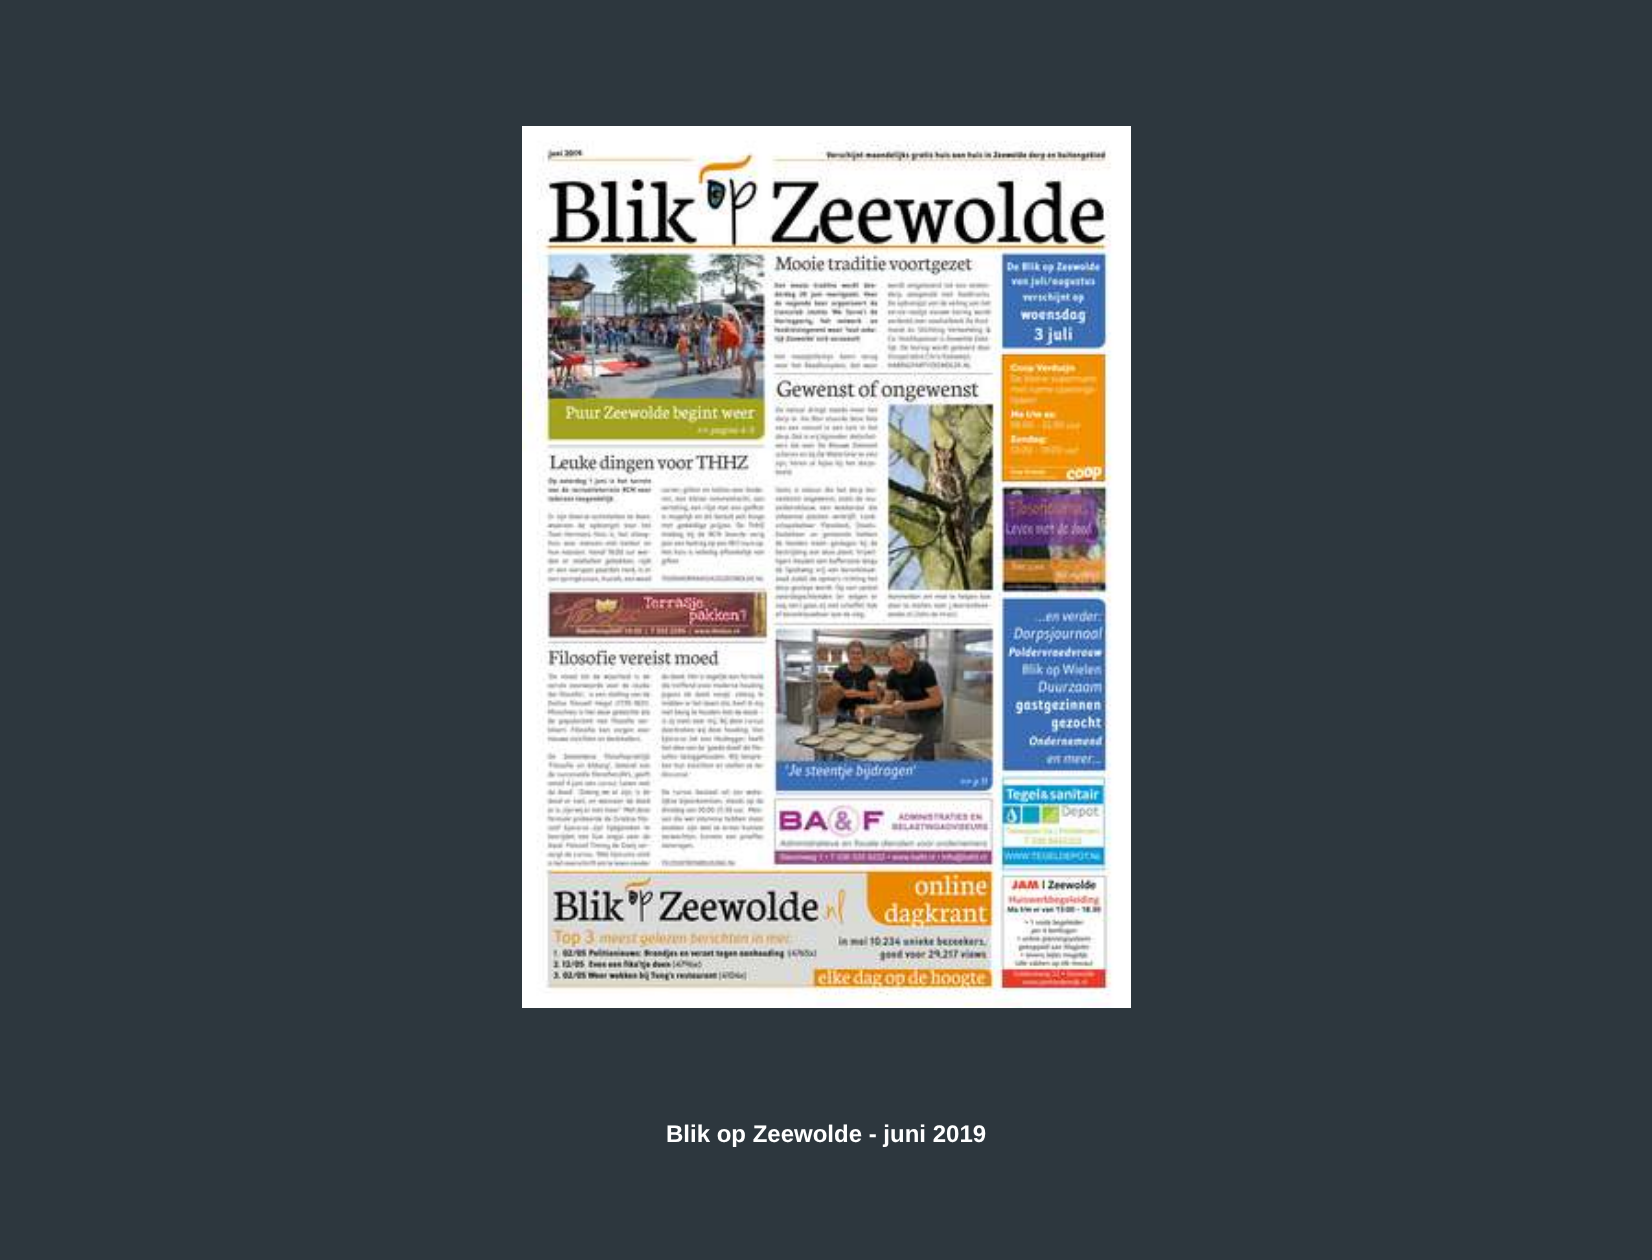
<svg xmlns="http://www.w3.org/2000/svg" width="1652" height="1260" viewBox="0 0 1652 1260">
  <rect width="100%" height="100%" fill="rgb(45,55,62)"/>
  <image x="522" y="126" width="609" height="882" href="pic1.png"/>
  <text x="666" y="1142" font-family="Liberation Sans" font-size="24" font-weight="bold" fill="rgb(255,255,255)">Blik op Zeewolde - juni 2019</text>
</svg>
